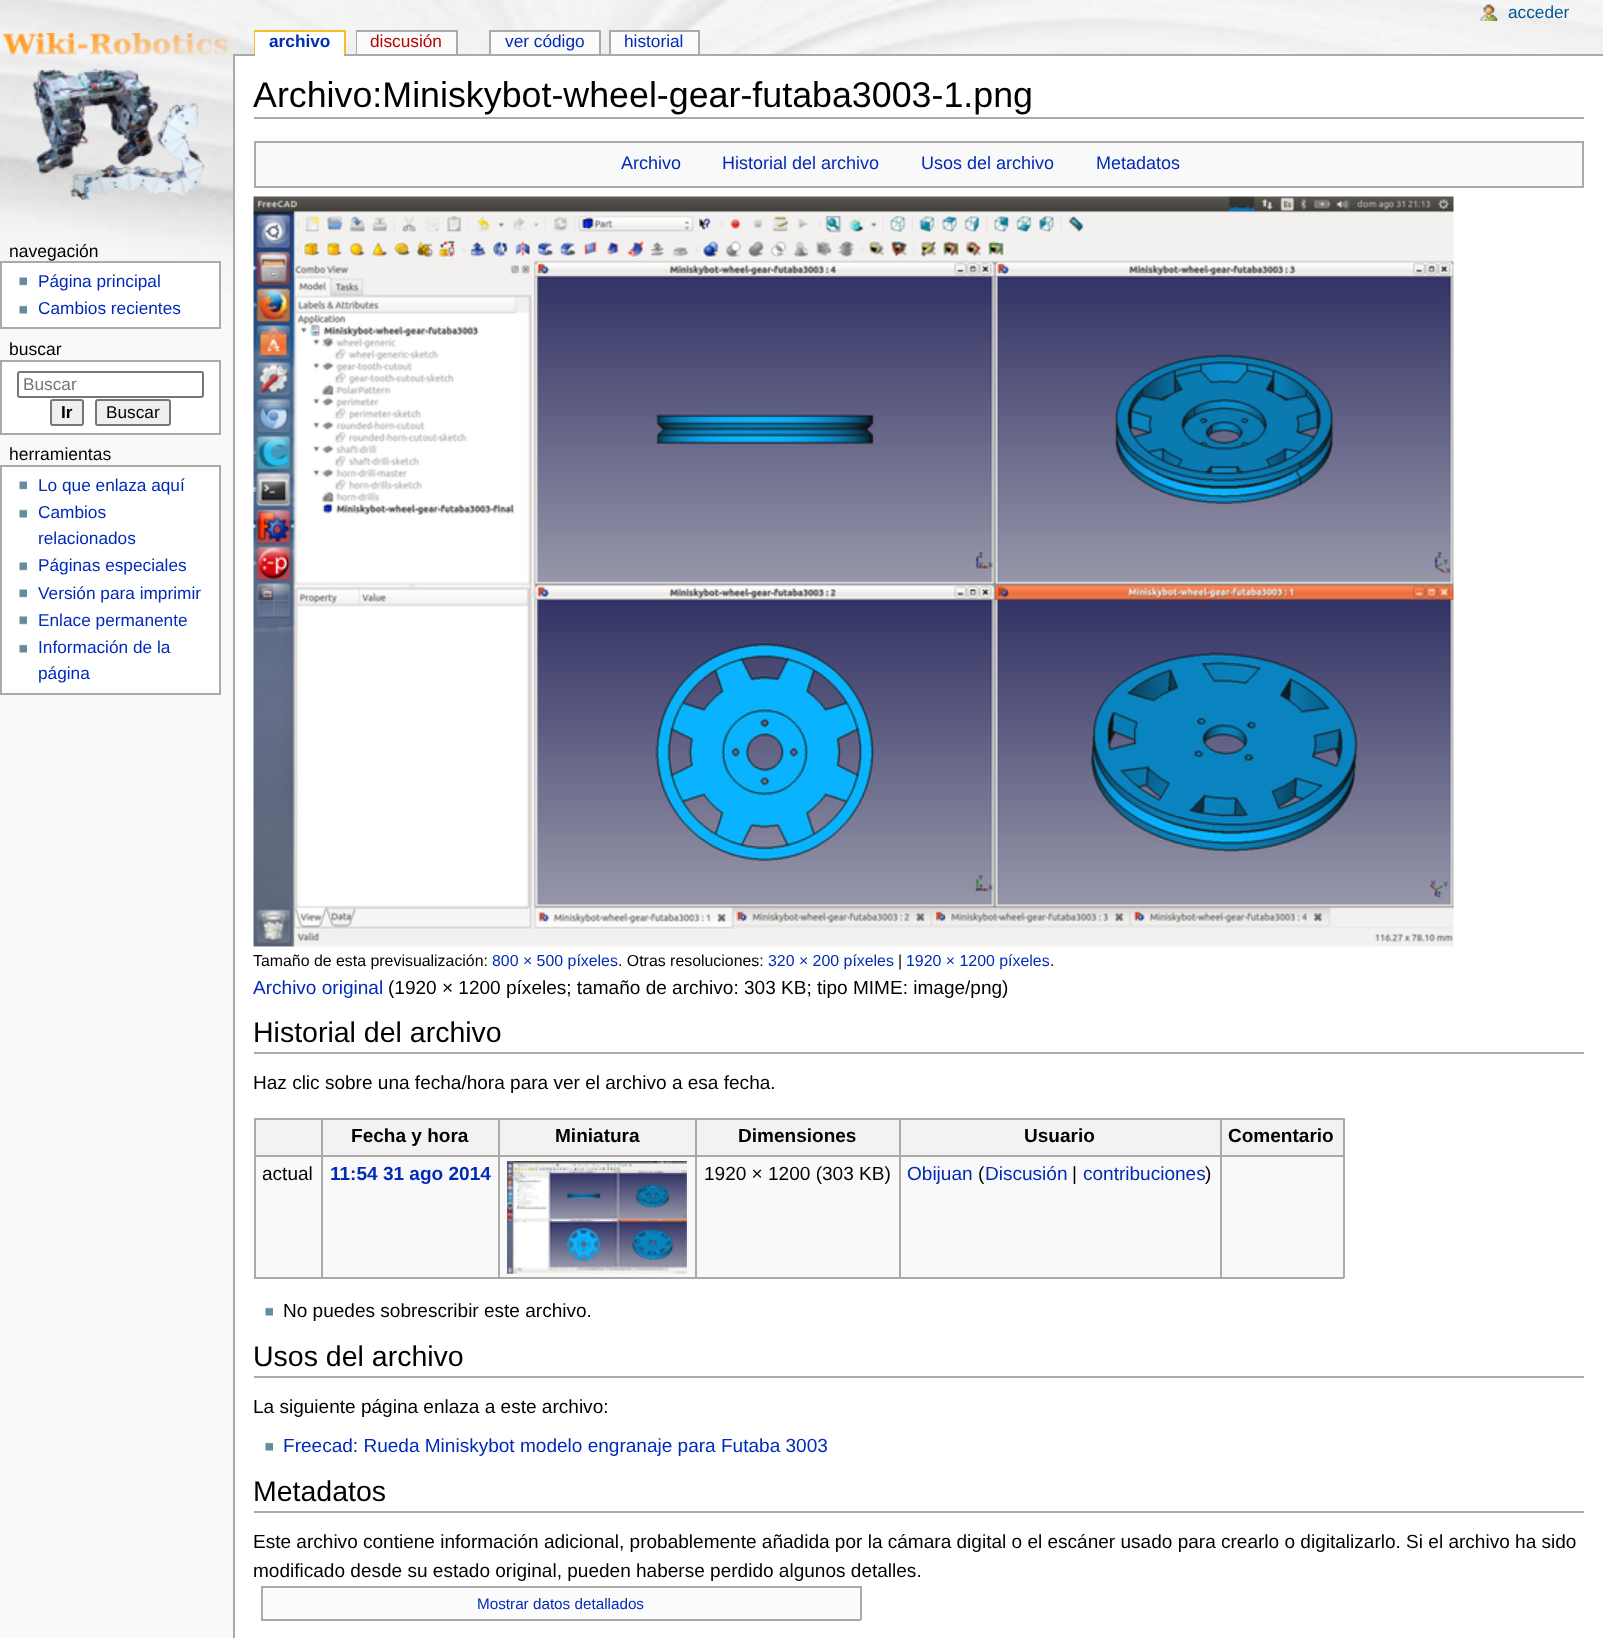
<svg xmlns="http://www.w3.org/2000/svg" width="1603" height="1638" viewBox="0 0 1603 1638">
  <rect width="100%" height="100%" fill="rgb(249,249,249)"/>
  <image x="0" y="0" width="1603" height="292" href="pic1.png"/>
  <image x="1480" y="4" width="18" height="17" href="pic2.png"/>
  <text x="1508" y="18" font-family="Liberation Sans" font-size="17.25" fill="rgb(0,88,150)">acceder</text>
  <image x="3" y="33" width="225" height="168" href="pic3.png"/>
  <rect x="254" y="30" width="91" height="2" fill="rgb(250,189,35)"/>
  <rect x="254" y="30" width="2" height="24" fill="rgb(250,189,35)"/>
  <rect x="233" y="54" width="1370" height="2" fill="rgb(170,170,170)"/>
  <rect x="255" y="32" width="89" height="24" fill="rgb(255,255,255)"/>
  <text x="269" y="47" font-family="Liberation Sans" font-size="17.25" font-weight="bold" fill="rgb(0,43,184)">archivo</text>
  <rect x="344" y="30" width="2" height="24" fill="rgb(250,189,35)"/>
  <rect x="356" y="30" width="102" height="2" fill="rgb(170,170,170)"/>
  <rect x="356" y="30" width="2" height="24" fill="rgb(170,170,170)"/>
  <rect x="357" y="32" width="99" height="22" fill="rgb(251,251,251)"/>
  <text x="370" y="47" font-family="Liberation Sans" font-size="17.25" fill="rgb(186,0,0)">discusión</text>
  <rect x="456" y="30" width="2" height="24" fill="rgb(170,170,170)"/>
  <rect x="491" y="32" width="108" height="22" fill="rgb(251,251,251)"/>
  <text x="505" y="47" font-family="Liberation Sans" font-size="17.25" fill="rgb(0,43,184)">ver código</text>
  <rect x="489" y="30" width="111" height="2" fill="rgb(170,170,170)"/>
  <rect x="599" y="30" width="2" height="24" fill="rgb(170,170,170)"/>
  <rect x="489" y="30" width="2" height="24" fill="rgb(170,170,170)"/>
  <rect x="611" y="32" width="87" height="22" fill="rgb(251,251,251)"/>
  <text x="624" y="47" font-family="Liberation Sans" font-size="17.25" fill="rgb(0,43,184)">historial</text>
  <rect x="609" y="30" width="90" height="2" fill="rgb(170,170,170)"/>
  <rect x="698" y="30" width="2" height="24" fill="rgb(170,170,170)"/>
  <rect x="609" y="30" width="2" height="24" fill="rgb(170,170,170)"/>
  <text x="9" y="257" font-family="Liberation Sans" font-size="17.5" fill="rgb(0,0,0)">navegación</text>
  <rect x="1" y="262" width="219" height="66" fill="rgb(255,255,255)" stroke="rgb(170,170,170)" stroke-width="2"/>
  <image x="19" y="277" width="8" height="9" href="pic4.png"/>
  <text x="38" y="287" font-family="Liberation Sans" font-size="17.25" fill="rgb(0,43,184)">Página principal</text>
  <image x="19" y="305" width="8" height="9" href="pic5.png"/>
  <text x="38" y="314" font-family="Liberation Sans" font-size="17.25" fill="rgb(0,43,184)">Cambios recientes</text>
  <text x="9" y="355" font-family="Liberation Sans" font-size="17.5" fill="rgb(0,0,0)">buscar</text>
  <rect x="1" y="361" width="219" height="73" fill="rgb(255,255,255)" stroke="rgb(170,170,170)" stroke-width="2"/>
  <rect x="18" y="372" width="185" height="25" rx="2" fill="none" stroke="rgb(118,118,118)" stroke-width="2"/>
  <text x="23" y="390" font-family="Liberation Sans" font-size="17.25" fill="rgb(117,117,117)">Buscar</text>
  <rect x="51" y="400" width="32" height="25" rx="2" fill="rgb(239,239,239)" stroke="rgb(118,118,118)" stroke-width="2"/>
  <text x="61" y="418" font-family="Liberation Sans" font-size="17.25" font-weight="bold" fill="rgb(0,0,0)">Ir</text>
  <rect x="96" y="400" width="74" height="25" rx="2" fill="rgb(239,239,239)" stroke="rgb(118,118,118)" stroke-width="2"/>
  <text x="106" y="418" font-family="Liberation Sans" font-size="17.25" fill="rgb(0,0,0)">Buscar</text>
  <text x="9" y="460" font-family="Liberation Sans" font-size="17.5" fill="rgb(0,0,0)">herramientas</text>
  <rect x="1" y="466" width="219" height="228" fill="rgb(255,255,255)" stroke="rgb(170,170,170)" stroke-width="2"/>
  <image x="19" y="481" width="8" height="9" href="pic4.png"/>
  <text x="38" y="491" font-family="Liberation Sans" font-size="17.25" fill="rgb(0,43,184)">Lo que enlaza aquí</text>
  <image x="19" y="509" width="8" height="9" href="pic5.png"/>
  <g font-family="Liberation Sans" font-size="17.25" fill="rgb(0,43,184)">
    <text>
      <tspan x="38" y="518">Cambios</tspan>
      <tspan x="38" y="544">relacionados</tspan>
    </text>
  </g>
  <image x="19" y="562" width="8" height="9" href="pic4.png"/>
  <text x="38" y="571" font-family="Liberation Sans" font-size="17.25" fill="rgb(0,43,184)">Páginas especiales</text>
  <image x="19" y="589" width="8" height="9" href="pic4.png"/>
  <text x="38" y="599" font-family="Liberation Sans" font-size="17.25" fill="rgb(0,43,184)">Versión para imprimir</text>
  <image x="19" y="616" width="8" height="9" href="pic4.png"/>
  <text x="38" y="626" font-family="Liberation Sans" font-size="17.25" fill="rgb(0,43,184)">Enlace permanente</text>
  <image x="19" y="644" width="8" height="9" href="pic5.png"/>
  <g font-family="Liberation Sans" font-size="17.25" fill="rgb(0,43,184)">
    <text>
      <tspan x="38" y="653">Información de la</tspan>
      <tspan x="38" y="679">página</tspan>
    </text>
  </g>
  <rect x="235" y="56" width="1368" height="1582" fill="rgb(255,255,255)"/>
  <rect x="233" y="54" width="2" height="1584" fill="rgb(170,170,170)"/>
  <rect x="254" y="117" width="1330" height="2" fill="rgb(170,170,170)"/>
  <text x="253" y="107" font-family="Liberation Sans" font-size="35.8" fill="rgb(0,0,0)">Archivo:Miniskybot-wheel-gear-futaba3003-1.png</text>
  <rect x="255" y="142" width="1328" height="45" fill="rgb(249,249,249)" stroke="rgb(170,170,170)" stroke-width="2"/>
  <g font-family="Liberation Sans" font-size="18" fill="rgb(0,43,184)">
    <text x="621" y="169">Archivo</text>
    <text x="722" y="169">Historial del archivo</text>
    <text x="921" y="169">Usos del archivo</text>
    <text x="1096" y="169">Metadatos</text>
  </g>
  <image x="253" y="196" width="1201" height="751" href="pic6.png"/>
  <text x="253" y="966" font-family="Liberation Sans" font-size="15.9" fill="rgb(0,0,0)">Tamaño de esta previsualización:</text>
  <text x="492" y="966" font-family="Liberation Sans" font-size="15.9" fill="rgb(0,43,184)">800 × 500 píxeles</text>
  <text x="618" y="966" font-family="Liberation Sans" font-size="15.9" fill="rgb(0,0,0)">. Otras resoluciones:</text>
  <text x="768" y="966" font-family="Liberation Sans" font-size="15.9" fill="rgb(0,43,184)">320 × 200 píxeles</text>
  <text x="898" y="966" font-family="Liberation Sans" font-size="15.9" fill="rgb(0,0,0)">|</text>
  <text x="906" y="966" font-family="Liberation Sans" font-size="15.9" fill="rgb(0,43,184)">1920 × 1200 píxeles</text>
  <text x="1050" y="966" font-family="Liberation Sans" font-size="15.9" fill="rgb(0,0,0)">.</text>
  <text x="253" y="994" font-family="Liberation Sans" font-size="19.05" fill="rgb(0,43,184)">Archivo original</text>
  <text x="388" y="994" font-family="Liberation Sans" font-size="19.05" fill="rgb(0,0,0)">(1920 × 1200 píxeles; tamaño de archivo: 303 KB; tipo MIME: image/png)</text>
  <rect x="254" y="1052" width="1330" height="2" fill="rgb(170,170,170)"/>
  <text x="253" y="1042" font-family="Liberation Sans" font-size="28.5" fill="rgb(0,0,0)">Historial del archivo</text>
  <text x="253" y="1089" font-family="Liberation Sans" font-size="19.05" fill="rgb(0,0,0)">Haz clic sobre una fecha/hora para ver el archivo a esa fecha.</text>
  <rect x="256" y="1157" width="1087" height="120" fill="rgb(249,249,249)"/>
  <rect x="254" y="1118" width="1090" height="2" fill="rgb(170,170,170)"/>
  <rect x="1343" y="1118" width="2" height="160" fill="rgb(170,170,170)"/>
  <rect x="254" y="1277" width="1090" height="2" fill="rgb(170,170,170)"/>
  <rect x="254" y="1118" width="2" height="160" fill="rgb(170,170,170)"/>
  <rect x="256" y="1120" width="65" height="35" fill="rgb(242,242,242)"/>
  <rect x="323" y="1120" width="175" height="35" fill="rgb(242,242,242)"/>
  <rect x="1220" y="1155" width="124" height="2" fill="rgb(170,170,170)"/>
  <rect x="1220" y="1155" width="2" height="123" fill="rgb(170,170,170)"/>
  <rect x="899" y="1155" width="322" height="2" fill="rgb(170,170,170)"/>
  <rect x="899" y="1155" width="2" height="123" fill="rgb(170,170,170)"/>
  <rect x="695" y="1155" width="205" height="2" fill="rgb(170,170,170)"/>
  <rect x="695" y="1155" width="2" height="123" fill="rgb(170,170,170)"/>
  <rect x="498" y="1155" width="198" height="2" fill="rgb(170,170,170)"/>
  <rect x="498" y="1155" width="2" height="123" fill="rgb(170,170,170)"/>
  <rect x="321" y="1155" width="179" height="2" fill="rgb(170,170,170)"/>
  <rect x="321" y="1155" width="2" height="123" fill="rgb(170,170,170)"/>
  <rect x="254" y="1155" width="69" height="2" fill="rgb(170,170,170)"/>
  <rect x="321" y="1118" width="2" height="39" fill="rgb(170,170,170)"/>
  <text x="351" y="1142" font-family="Liberation Sans" font-size="19.05" font-weight="bold" fill="rgb(0,0,0)">Fecha y hora</text>
  <rect x="500" y="1120" width="195" height="35" fill="rgb(242,242,242)"/>
  <rect x="498" y="1118" width="2" height="39" fill="rgb(170,170,170)"/>
  <text x="555" y="1142" font-family="Liberation Sans" font-size="19.05" font-weight="bold" fill="rgb(0,0,0)">Miniatura</text>
  <rect x="697" y="1120" width="202" height="35" fill="rgb(242,242,242)"/>
  <rect x="695" y="1118" width="2" height="39" fill="rgb(170,170,170)"/>
  <text x="738" y="1142" font-family="Liberation Sans" font-size="19.05" font-weight="bold" fill="rgb(0,0,0)">Dimensiones</text>
  <rect x="901" y="1120" width="319" height="35" fill="rgb(242,242,242)"/>
  <rect x="899" y="1118" width="2" height="39" fill="rgb(170,170,170)"/>
  <text x="1024" y="1142" font-family="Liberation Sans" font-size="19.05" font-weight="bold" fill="rgb(0,0,0)">Usuario</text>
  <rect x="1222" y="1120" width="121" height="35" fill="rgb(242,242,242)"/>
  <rect x="1220" y="1118" width="2" height="39" fill="rgb(170,170,170)"/>
  <text x="1228" y="1142" font-family="Liberation Sans" font-size="19.05" font-weight="bold" fill="rgb(0,0,0)">Comentario</text>
  <text x="262" y="1180" font-family="Liberation Sans" font-size="19.05" fill="rgb(0,0,0)">actual</text>
  <text x="330" y="1180" font-family="Liberation Sans" font-size="19.05" font-weight="bold" fill="rgb(0,43,184)">11:54 31 ago 2014</text>
  <image x="507" y="1161" width="180" height="113" href="pic7.png"/>
  <image x="507" y="1273" width="180" height="1" href="pic8.png"/>
  <text x="704" y="1180" font-family="Liberation Sans" font-size="19.05" fill="rgb(0,0,0)">1920 × 1200 (303 KB)</text>
  <text x="907" y="1180" font-family="Liberation Sans" font-size="19.05" fill="rgb(0,43,184)">Obijuan</text>
  <text x="978" y="1180" font-family="Liberation Sans" font-size="19.05" fill="rgb(0,0,0)">(</text>
  <text x="985" y="1180" font-family="Liberation Sans" font-size="19.05" fill="rgb(0,43,184)">Discusión</text>
  <text x="1072" y="1180" font-family="Liberation Sans" font-size="19.05" fill="rgb(0,0,0)">|</text>
  <text x="1083" y="1180" font-family="Liberation Sans" font-size="19.05" fill="rgb(0,43,184)">contribuciones</text>
  <text x="1205" y="1180" font-family="Liberation Sans" font-size="19.05" fill="rgb(0,0,0)">)</text>
  <image x="265" y="1307" width="8" height="9" href="pic5.png"/>
  <text x="283" y="1317" font-family="Liberation Sans" font-size="19.05" fill="rgb(0,0,0)">No puedes sobrescribir este archivo.</text>
  <rect x="254" y="1376" width="1330" height="2" fill="rgb(170,170,170)"/>
  <text x="253" y="1366" font-family="Liberation Sans" font-size="28.5" fill="rgb(0,0,0)">Usos del archivo</text>
  <text x="253" y="1413" font-family="Liberation Sans" font-size="19.05" fill="rgb(0,0,0)">La siguiente página enlaza a este archivo:</text>
  <image x="265" y="1442" width="8" height="9" href="pic5.png"/>
  <text x="283" y="1452" font-family="Liberation Sans" font-size="19.05" fill="rgb(0,43,184)">Freecad: Rueda Miniskybot modelo engranaje para Futaba 3003</text>
  <rect x="254" y="1511" width="1330" height="2" fill="rgb(170,170,170)"/>
  <text x="253" y="1501" font-family="Liberation Sans" font-size="28.5" fill="rgb(0,0,0)">Metadatos</text>
  <g font-family="Liberation Sans" font-size="19.05" fill="rgb(0,0,0)">
    <text>
      <tspan x="253" y="1548">Este archivo contiene información adicional, probablemente añadida por la cámara digital o el escáner usado para crearlo o digitalizarlo. Si el archivo ha sido</tspan>
      <tspan x="253" y="1577">modificado desde su estado original, pueden haberse perdido algunos detalles.</tspan>
    </text>
  </g>
  <rect x="263" y="1588" width="597" height="31" fill="rgb(252,252,252)"/>
  <rect x="261" y="1586" width="600" height="2" fill="rgb(170,170,170)"/>
  <rect x="860" y="1586" width="2" height="34" fill="rgb(170,170,170)"/>
  <rect x="261" y="1619" width="600" height="2" fill="rgb(170,170,170)"/>
  <rect x="261" y="1586" width="2" height="34" fill="rgb(170,170,170)"/>
  <text x="477" y="1609" font-family="Liberation Sans" font-size="15.25" fill="rgb(0,43,184)">Mostrar datos detallados</text>
</svg>
